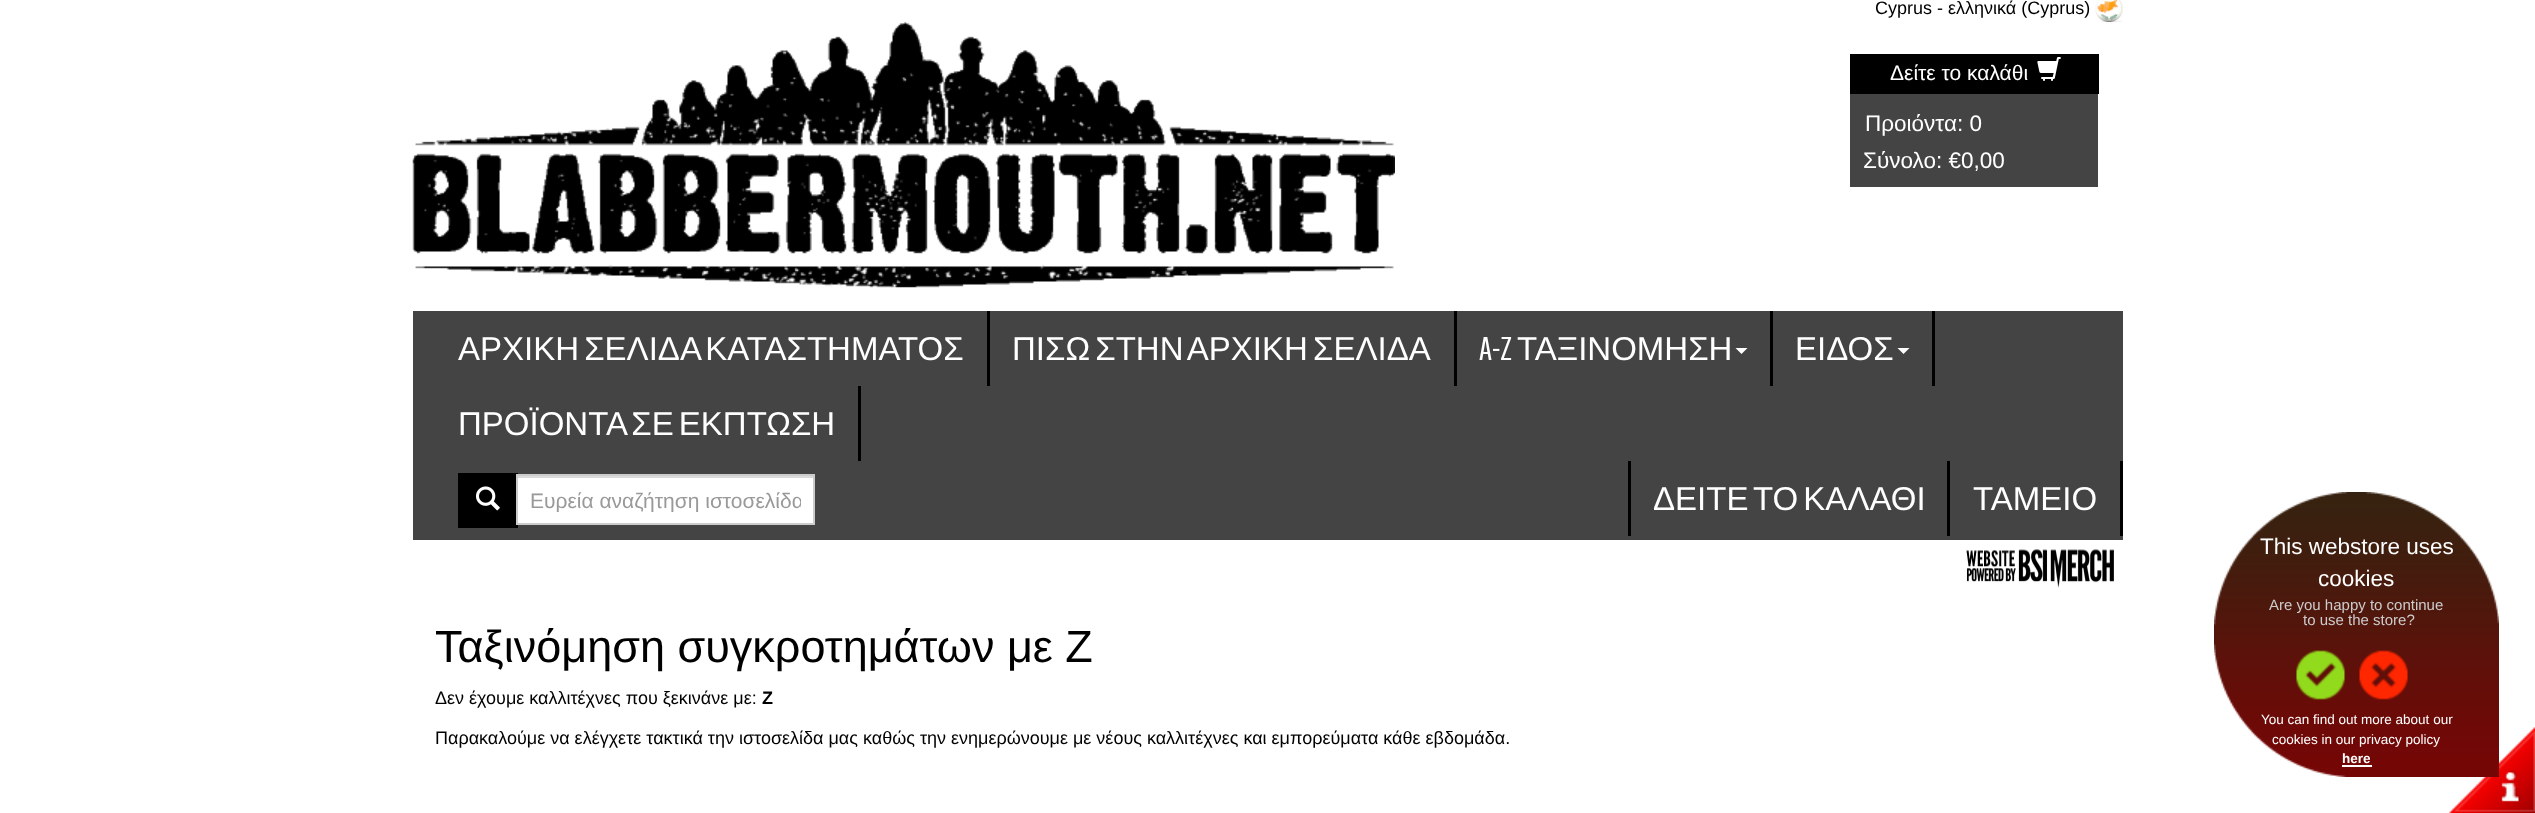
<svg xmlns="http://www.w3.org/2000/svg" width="2535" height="813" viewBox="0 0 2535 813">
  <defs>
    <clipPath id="clip1"><rect x="530" y="488" width="271" height="24"/></clipPath>
  </defs>
  <rect width="100%" height="100%" fill="rgb(255,255,255)"/>
  <text x="1875" y="14" font-family="Liberation Sans" font-size="18" fill="rgb(0,0,0)">Cyprus - ελληνικά (Cyprus)</text>
  <image x="2095" y="0" width="28" height="22" href="pic1.png"/>
  <image x="412" y="22" width="983" height="266" href="pic2.png"/>
  <rect x="1850" y="94" width="248" height="93" fill="rgb(68,68,68)"/>
  <rect x="1850" y="54" width="249" height="40" fill="rgb(0,0,0)"/>
  <text x="1890" y="80" font-family="Liberation Sans" font-size="21" fill="rgb(255,255,255)">Δείτε το καλάθι</text>
  <image x="2037" y="57" width="24" height="24" href="pic3.png"/>
  <g font-family="Liberation Sans" font-size="22.5" fill="rgb(255,255,255)">
    <text x="1865" y="131">Προιόντα: 0</text>
    <text x="1863" y="168">Σύνολο: €0,00</text>
  </g>
  <rect x="413" y="311" width="1710" height="229" fill="rgb(68,68,68)"/>
  <rect x="987" y="311" width="3" height="75" fill="rgb(0,0,0)"/>
  <text x="458" y="360" word-spacing="-4" font-family="Liberation Sans" font-size="33" fill="rgb(255,255,255)">ΑΡΧΙΚΗ ΣΕΛΙΔΑ ΚΑΤΑΣΤΗΜΑΤΟΣ</text>
  <rect x="1454" y="311" width="3" height="75" fill="rgb(0,0,0)"/>
  <text x="1012" y="360" word-spacing="-4" font-family="Liberation Sans" font-size="33" fill="rgb(255,255,255)">ΠΙΣΩ ΣΤΗΝ ΑΡΧΙΚΗ ΣΕΛΙΔΑ</text>
  <rect x="1770" y="311" width="3" height="75" fill="rgb(0,0,0)"/>
  <text x="1479" y="360" font-family="Pathway Gothic One" font-size="33" fill="rgb(255,255,255)">A-Z</text>
  <text x="1517" y="360" font-family="Liberation Sans" font-size="33" fill="rgb(255,255,255)">ΤΑΞΙΝΟΜΗΣΗ</text>
  <path d="M1735.5 348H1747.5L1741.5 354Z" fill="rgb(255,255,255)"/>
  <rect x="1932" y="311" width="3" height="75" fill="rgb(0,0,0)"/>
  <text x="1795" y="360" font-family="Liberation Sans" font-size="33" fill="rgb(255,255,255)">ΕΙΔΟΣ</text>
  <path d="M1897.5 348H1909.5L1903.5 354Z" fill="rgb(255,255,255)"/>
  <rect x="858" y="386" width="3" height="75" fill="rgb(0,0,0)"/>
  <text x="458" y="435" word-spacing="-4" font-family="Liberation Sans" font-size="33" fill="rgb(255,255,255)">ΠΡΟΪΟΝΤΑ ΣΕ ΕΚΠΤΩΣΗ</text>
  <rect x="458" y="473" width="60" height="55" fill="rgb(0,0,0)"/>
  <image x="476" y="486" width="24" height="25" href="pic4.png"/>
  <rect x="518" y="478" width="295" height="45" fill="rgb(255,255,255)"/>
  <rect x="517" y="475" width="297" height="49" fill="none" stroke="rgb(204,204,204)" stroke-width="2"/>
  <rect x="518" y="476" width="295" height="2" fill="rgb(218,218,218)"/>
  <g clip-path="url(#clip1)">
    <text x="530" y="508" font-family="Liberation Sans" font-size="21" fill="rgb(153,153,153)">Ευρεία αναζήτηση ιστοσελίδα</text>
  </g>
  <rect x="1947" y="461" width="3" height="75" fill="rgb(0,0,0)"/>
  <rect x="1628" y="461" width="3" height="75" fill="rgb(0,0,0)"/>
  <text x="1653" y="510" word-spacing="-4" font-family="Liberation Sans" font-size="33" fill="rgb(255,255,255)">ΔΕΙΤΕ ΤΟ ΚΑΛΑΘΙ</text>
  <rect x="2120" y="461" width="3" height="75" fill="rgb(0,0,0)"/>
  <text x="1973" y="510" font-family="Liberation Sans" font-size="33" fill="rgb(255,255,255)">ΤΑΜΕΙΟ</text>
  <image x="1966" y="549" width="148" height="39" href="pic5.png"/>
  <text x="435" y="662" font-family="Liberation Sans" font-size="45" fill="rgb(0,0,0)">Ταξινόμηση συγκροτημάτων με Z</text>
  <text x="435" y="704" font-family="Liberation Sans" font-size="18" fill="rgb(0,0,0)">Δεν έχουμε καλλιτέχνες που ξεκινάνε με:</text>
  <text x="762" y="704" font-family="Liberation Sans" font-size="18" font-weight="bold" fill="rgb(0,0,0)">Z</text>
  <text x="435" y="744" font-family="Liberation Sans" font-size="18" fill="rgb(0,0,0)">Παρακαλούμε να ελέγχετε τακτικά την ιστοσελίδα μας καθώς την ενημερώνουμε με νέους καλλιτέχνες και εμπορεύματα κάθε εβδομάδα.</text>
  <image x="2449" y="727" width="86" height="86" href="pic9.png"/>
  <image x="2214" y="492" width="285" height="285" href="pic6.png"/>
  <g font-family="Liberation Sans" font-size="22.5" fill="rgb(255,255,255)">
    <text x="2260" y="554">This webstore uses</text>
    <text x="2318" y="586">cookies</text>
  </g>
  <g font-family="Liberation Sans" font-size="15" fill="rgb(204,204,204)">
    <text x="2269" y="610">Are you happy to continue</text>
    <text x="2303" y="625">to use the store?</text>
  </g>
  <image x="2296" y="650" width="49" height="50" href="pic7.png"/>
  <image x="2359" y="650" width="49" height="50" href="pic8.png"/>
  <g font-family="Liberation Sans" font-size="13.5" fill="rgb(255,255,255)">
    <text x="2261" y="724">You can find out more about our</text>
    <text x="2272" y="744">cookies in our privacy policy</text>
  </g>
  <text x="2342" y="763" font-family="Liberation Sans" font-size="13.5" font-weight="bold" fill="rgb(255,255,255)">here</text>
  <rect x="2342" y="765" width="30" height="2" fill="rgb(255,255,255)"/>
</svg>
